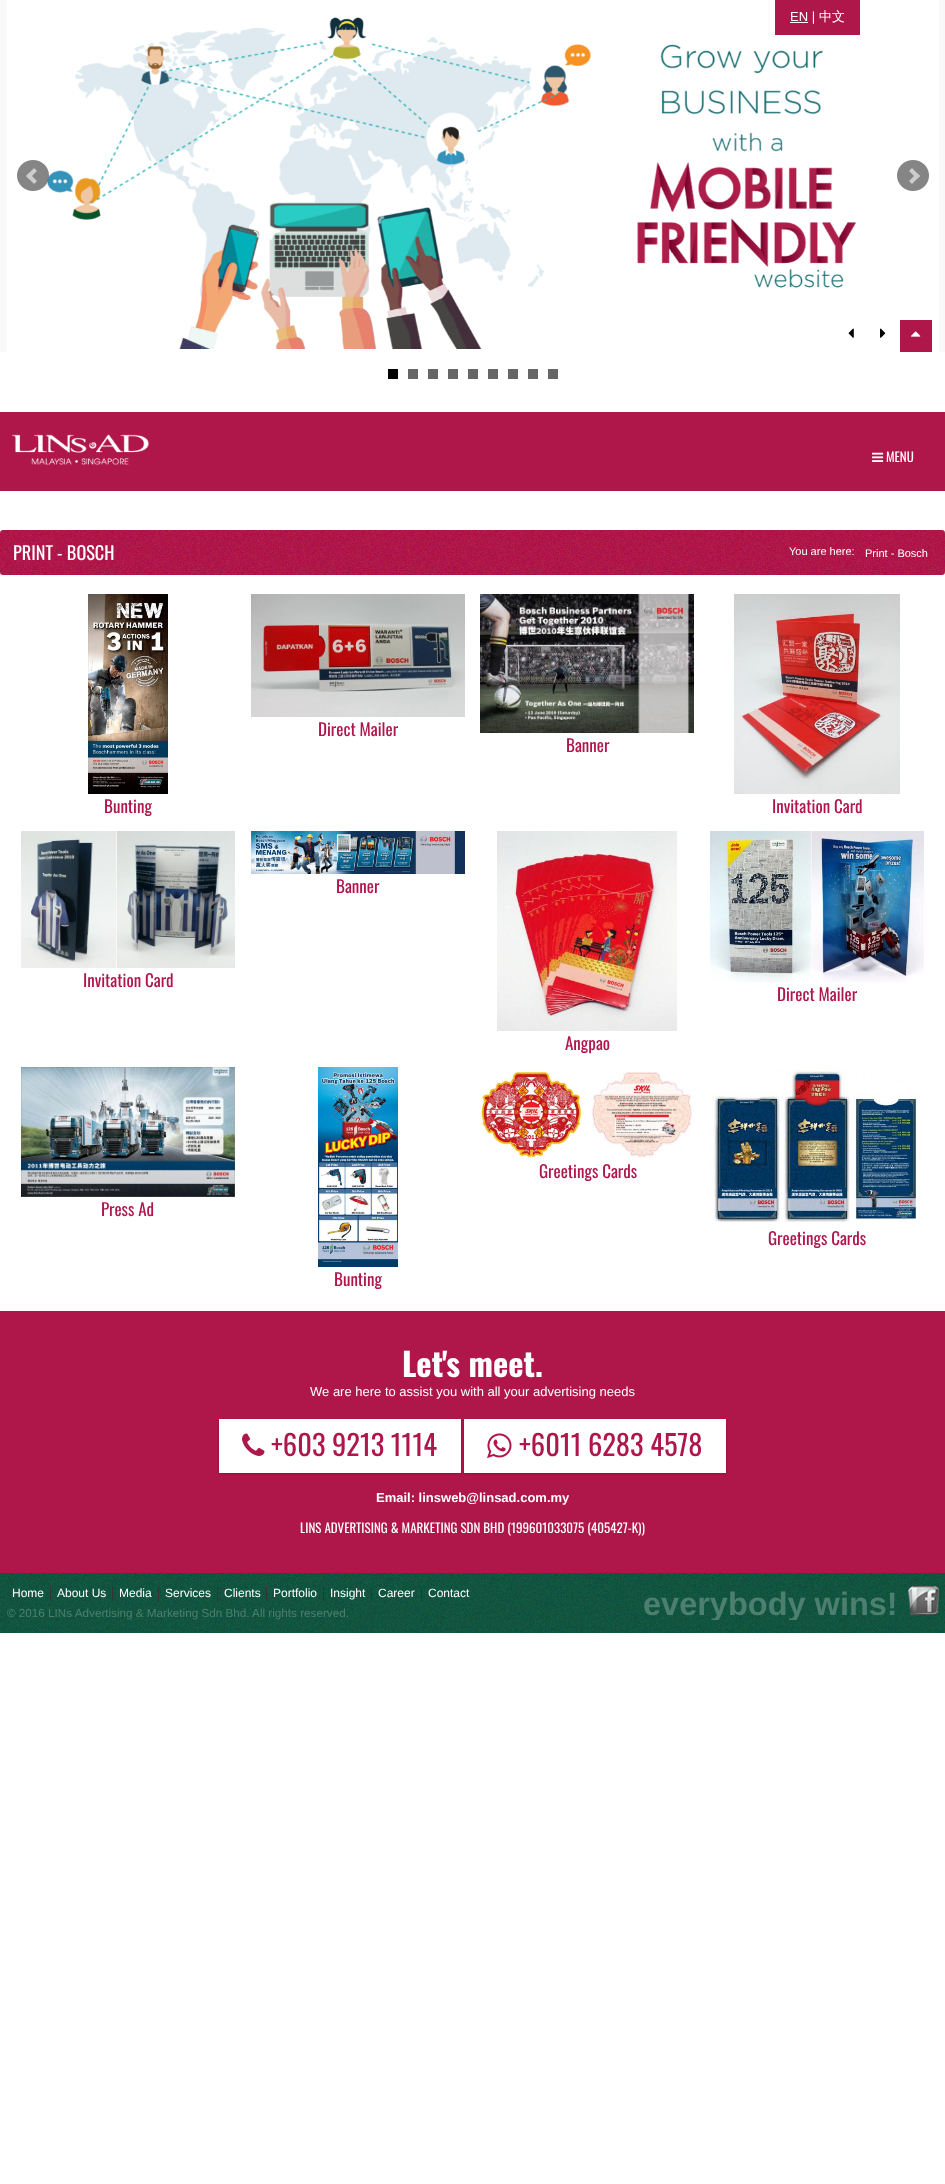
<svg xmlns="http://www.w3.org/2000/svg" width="945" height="2184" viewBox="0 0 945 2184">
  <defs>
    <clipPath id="clip1"><rect x="633" y="1586" width="306" height="34"/></clipPath>
  </defs>
  <rect width="100%" height="100%" fill="rgb(255,255,255)"/>
  <rect x="0" y="0" width="945" height="352" fill="rgb(249,249,249)"/>
  <rect x="7" y="0" width="932" height="352" fill="rgb(255,255,255)"/>
  <image x="47" y="17" width="810" height="332" href="pic1.png"/>
  <rect x="775" y="0" width="85" height="35" fill="rgb(175,22,73)"/>
  <rect x="790" y="22" width="18" height="1" fill="rgb(255,255,255)"/>
  <text x="790" y="21" font-family="Liberation Sans" font-size="13" fill="rgb(255,255,255)">EN |</text>
  <text x="819" y="21" font-family="WenQuanYi Zen Hei" font-size="13" font-weight="500" fill="rgb(255,255,255)">中文</text>
  <image x="17" y="160" width="32" height="31" href="pic2.png"/>
  <image x="897" y="160" width="32" height="31" href="pic3.png"/>
  <rect x="388" y="369" width="10" height="10" fill="rgb(0,0,0)"/>
  <rect x="408" y="369" width="10" height="10" fill="rgb(102,102,102)"/>
  <rect x="428" y="369" width="10" height="10" fill="rgb(102,102,102)"/>
  <rect x="448" y="369" width="10" height="10" fill="rgb(102,102,102)"/>
  <rect x="468" y="369" width="10" height="10" fill="rgb(102,102,102)"/>
  <rect x="488" y="369" width="10" height="10" fill="rgb(102,102,102)"/>
  <rect x="508" y="369" width="10" height="10" fill="rgb(102,102,102)"/>
  <rect x="528" y="369" width="10" height="10" fill="rgb(102,102,102)"/>
  <rect x="548" y="369" width="10" height="10" fill="rgb(102,102,102)"/>
  <image x="848" y="328" width="6" height="10" href="pic4.png"/>
  <image x="880" y="328" width="6" height="10" href="pic5.png"/>
  <rect x="900" y="320" width="32" height="32" fill="rgb(175,22,73)"/>
  <image x="911" y="331" width="10" height="6" href="pic6.png"/>
  <rect x="0" y="412" width="945" height="79" fill="rgb(175,22,73)"/>
  <image x="11" y="434" width="138" height="31" href="pic7.png"/>
  <image x="872" y="452" width="12" height="10" href="pic8.png"/>
  <text x="886" y="462" font-family="Oswald" font-size="13" fill="rgb(255,255,255)">MENU</text>
  <image x="0" y="530" width="945" height="45" href="pic9.png"/>
  <text x="13" y="560" font-family="Oswald" font-size="18.25" fill="rgb(255,255,255)">PRINT - BOSCH</text>
  <g font-family="Liberation Sans" font-size="11" fill="rgb(255,255,255)">
    <text x="789" y="555">You are here:</text>
    <text x="865" y="557">Print - Bosch</text>
  </g>
  <image x="251" y="594" width="214" height="123" href="pic10.png"/>
  <text x="318" y="736" font-family="Oswald" font-size="17" fill="rgb(175,22,73)">Direct Mailer</text>
  <image x="480" y="594" width="214" height="139" href="pic11.png"/>
  <text x="566" y="752" font-family="Oswald" font-size="17" fill="rgb(175,22,73)">Banner</text>
  <image x="88" y="594" width="80" height="200" href="pic12.png"/>
  <text x="104" y="813" font-family="Oswald" font-size="17" fill="rgb(175,22,73)">Bunting</text>
  <image x="734" y="594" width="166" height="200" href="pic13.png"/>
  <text x="772" y="813" font-family="Oswald" font-size="17" fill="rgb(175,22,73)">Invitation Card</text>
  <image x="251" y="831" width="214" height="43" href="pic14.png"/>
  <text x="336" y="893" font-family="Oswald" font-size="17" fill="rgb(175,22,73)">Banner</text>
  <image x="21" y="831" width="214" height="137" href="pic15.png"/>
  <text x="83" y="987" font-family="Oswald" font-size="17" fill="rgb(175,22,73)">Invitation Card</text>
  <image x="710" y="831" width="214" height="151" href="pic16.png"/>
  <text x="777" y="1001" font-family="Oswald" font-size="17" fill="rgb(175,22,73)">Direct Mailer</text>
  <image x="497" y="831" width="180" height="200" href="pic17.png"/>
  <text x="565" y="1050" font-family="Oswald" font-size="17" fill="rgb(175,22,73)">Angpao</text>
  <image x="480" y="1071" width="213" height="88" href="pic18.png"/>
  <text x="539" y="1178" font-family="Oswald" font-size="17" fill="rgb(175,22,73)">Greetings Cards</text>
  <image x="21" y="1067" width="214" height="130" href="pic19.png"/>
  <text x="101" y="1216" font-family="Oswald" font-size="17" fill="rgb(175,22,73)">Press Ad</text>
  <image x="710" y="1068" width="211" height="154" href="pic20.png"/>
  <text x="768" y="1245" font-family="Oswald" font-size="17" fill="rgb(175,22,73)">Greetings Cards</text>
  <image x="318" y="1067" width="80" height="200" href="pic21.png"/>
  <text x="334" y="1286" font-family="Oswald" font-size="17" fill="rgb(175,22,73)">Bunting</text>
  <rect x="0" y="1311" width="945" height="262" fill="rgb(175,22,73)"/>
  <text x="402" y="1377" font-family="Oswald" font-size="32.5" font-weight="bold" fill="rgb(255,255,255)">Let's meet.</text>
  <text x="310" y="1396" font-family="Liberation Sans" font-size="13" fill="rgb(255,255,255)">We are here to assist you with all your advertising needs</text>
  <rect x="219" y="1420" width="242" height="54" fill="rgba(0,0,0,0.2)" filter="blur(1px)"/>
  <rect x="219" y="1419" width="242" height="54" fill="rgb(255,255,255)"/>
  <image x="242" y="1433" width="23" height="23" href="pic22.png"/>
  <text x="271" y="1456" font-family="Oswald" font-size="28.5" fill="rgb(175,22,73)">+603 9213 1114</text>
  <rect x="464" y="1420" width="262" height="54" fill="rgba(0,0,0,0.2)" filter="blur(1px)"/>
  <rect x="464" y="1419" width="262" height="54" fill="rgb(255,255,255)"/>
  <image x="487" y="1433" width="25" height="26" href="pic23.png"/>
  <text x="519" y="1456" font-family="Oswald" font-size="28.5" fill="rgb(175,22,73)">+6011 6283 4578</text>
  <text x="376" y="1502" font-family="Liberation Sans" font-size="13" font-weight="bold" fill="rgb(255,255,255)">Email: linsweb@linsad.com.my</text>
  <text x="300" y="1533" font-family="Oswald" font-size="13" fill="rgb(255,255,255)">LINS ADVERTISING &amp; MARKETING SDN BHD (199601033075 (405427-K))</text>
  <image x="0" y="1573" width="945" height="60" href="pic24.png"/>
  <rect x="50" y="1587" width="1" height="14" fill="rgb(51,51,51)"/>
  <text x="12" y="1597" font-family="Liberation Sans" font-size="12" fill="rgb(255,255,255)">Home</text>
  <rect x="112" y="1587" width="1" height="14" fill="rgb(51,51,51)"/>
  <text x="57" y="1597" font-family="Liberation Sans" font-size="12" fill="rgb(255,255,255)">About Us</text>
  <rect x="158" y="1587" width="1" height="14" fill="rgb(51,51,51)"/>
  <text x="119" y="1597" font-family="Liberation Sans" font-size="12" fill="rgb(255,255,255)">Media</text>
  <rect x="217" y="1587" width="1" height="14" fill="rgb(51,51,51)"/>
  <text x="165" y="1597" font-family="Liberation Sans" font-size="12" fill="rgb(255,255,255)">Services</text>
  <rect x="266" y="1587" width="1" height="14" fill="rgb(51,51,51)"/>
  <text x="224" y="1597" font-family="Liberation Sans" font-size="12" fill="rgb(255,255,255)">Clients</text>
  <rect x="323" y="1587" width="1" height="14" fill="rgb(51,51,51)"/>
  <text x="273" y="1597" font-family="Liberation Sans" font-size="12" fill="rgb(255,255,255)">Portfolio</text>
  <rect x="371" y="1587" width="1" height="14" fill="rgb(51,51,51)"/>
  <text x="330" y="1597" font-family="Liberation Sans" font-size="12" fill="rgb(255,255,255)">Insight</text>
  <rect x="421" y="1587" width="1" height="14" fill="rgb(51,51,51)"/>
  <g font-family="Liberation Sans" font-size="12" fill="rgb(255,255,255)">
    <text x="378" y="1597">Career</text>
    <text x="428" y="1597">Contact</text>
  </g>
  <text x="7" y="1617" font-family="Liberation Sans" font-size="11.7" fill="rgb(77,127,111)">© 2016 LINs Advertising &amp; Marketing Sdn Bhd. All rights reserved.</text>
  <g clip-path="url(#clip1)">
    <text x="643" y="1615" font-family="Liberation Sans" font-size="32.5" font-weight="bold" fill="rgb(77,127,111)">everybody wins!</text>
  </g>
  <image x="908" y="1586" width="31" height="29" href="pic25.png"/>
</svg>
